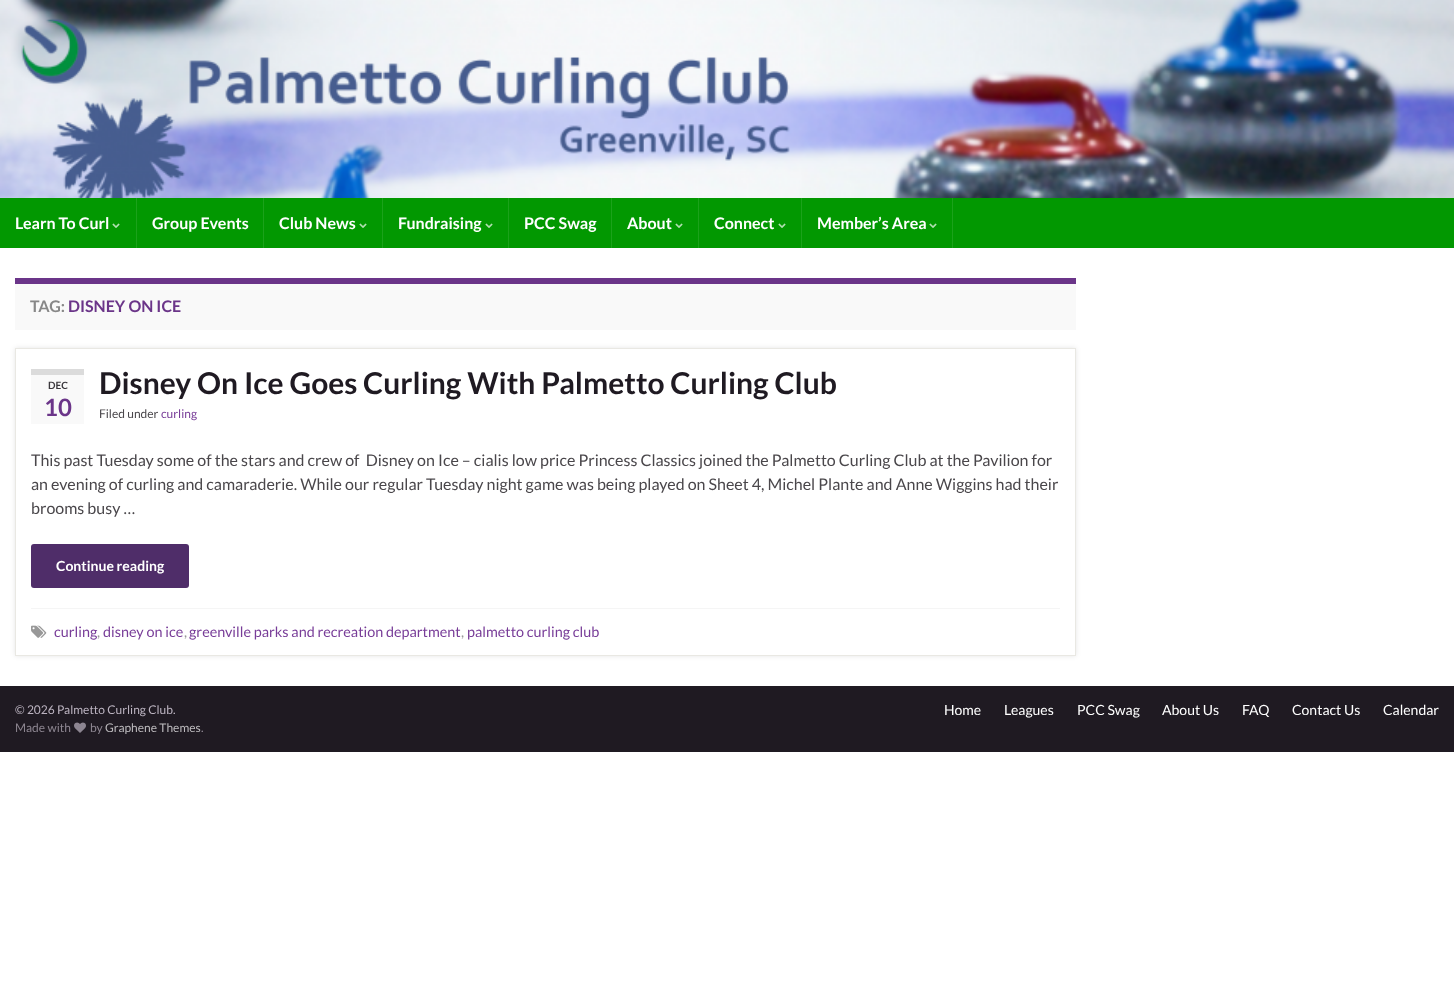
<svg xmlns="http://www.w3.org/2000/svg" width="1454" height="985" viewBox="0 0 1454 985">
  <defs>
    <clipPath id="clip1"><path d="M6 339H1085V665H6ZM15 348H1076V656H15Z" clip-rule="evenodd"/></clipPath>
  </defs>
  <rect width="100%" height="100%" fill="rgb(255,255,255)"/>
  <image x="0" y="0" width="1454" height="198" href="pic1.png"/>
  <rect x="0" y="198" width="1454" height="50" fill="rgb(2,152,1)"/>
  <rect x="136" y="198" width="1" height="50" fill="rgb(27,162,26)"/>
  <text x="15" y="229" font-family="Lato" font-size="16" font-weight="bold" fill="rgb(255,255,255)">Learn To Curl</text>
  <image x="112" y="223" width="8" height="5" href="pic2.png"/>
  <rect x="263" y="198" width="1" height="50" fill="rgb(27,162,26)"/>
  <text x="152" y="229" font-family="Lato" font-size="16" font-weight="bold" fill="rgb(255,255,255)">Group Events</text>
  <rect x="382" y="198" width="1" height="50" fill="rgb(27,162,26)"/>
  <text x="279" y="229" font-family="Lato" font-size="16" font-weight="bold" fill="rgb(255,255,255)">Club News</text>
  <image x="359" y="223" width="8" height="5" href="pic2.png"/>
  <rect x="508" y="198" width="1" height="50" fill="rgb(27,162,26)"/>
  <text x="398" y="229" font-family="Lato" font-size="16" font-weight="bold" fill="rgb(255,255,255)">Fundraising</text>
  <image x="485" y="223" width="8" height="5" href="pic2.png"/>
  <rect x="611" y="198" width="1" height="50" fill="rgb(27,162,26)"/>
  <text x="524" y="229" font-family="Lato" font-size="16" font-weight="bold" fill="rgb(255,255,255)">PCC Swag</text>
  <rect x="698" y="198" width="1" height="50" fill="rgb(27,162,26)"/>
  <text x="627" y="229" font-family="Lato" font-size="16" font-weight="bold" fill="rgb(255,255,255)">About</text>
  <image x="675" y="223" width="8" height="5" href="pic2.png"/>
  <rect x="801" y="198" width="1" height="50" fill="rgb(27,162,26)"/>
  <text x="714" y="229" font-family="Lato" font-size="16" font-weight="bold" fill="rgb(255,255,255)">Connect</text>
  <image x="778" y="223" width="8" height="5" href="pic2.png"/>
  <rect x="952" y="198" width="1" height="50" fill="rgb(27,162,26)"/>
  <text x="817" y="229" font-family="Lato" font-size="16" font-weight="bold" fill="rgb(255,255,255)">Member’s Area</text>
  <image x="929" y="223" width="8" height="5" href="pic2.png"/>
  <rect x="15" y="284" width="1061" height="46" fill="rgb(249,249,249)"/>
  <rect x="15" y="278" width="1061" height="6" fill="rgb(107,53,137)"/>
  <text x="30" y="312" font-family="Lato" font-size="16" font-weight="bold" fill="rgb(136,136,136)">TAG:</text>
  <text x="68" y="312" font-family="Lato" font-size="16" font-weight="bold" fill="rgb(107,53,137)">DISNEY ON ICE</text>
  <g clip-path="url(#clip1)">
    <rect x="15" y="348" width="1061" height="308" fill="rgba(0,0,0,0.1)" filter="blur(2.5px)"/>
  </g>
  <rect x="15.5" y="348.5" width="1060" height="307" fill="none" stroke="rgb(233,232,227)"/>
  <rect x="31" y="375" width="53" height="49" fill="rgb(249,249,249)"/>
  <rect x="31" y="369" width="53" height="6" fill="rgb(219,219,219)"/>
  <text x="48" y="389" font-family="Lato" font-size="10" font-weight="bold" fill="rgb(59,56,61)">DEC</text>
  <text x="44" y="416" font-family="Lato" font-size="24" font-weight="bold" fill="rgb(107,53,137)">10</text>
  <text x="99" y="394" font-family="Lato" font-size="30" font-weight="bold" fill="rgb(31,26,34)">Disney On Ice Goes Curling With Palmetto Curling Club</text>
  <text x="99" y="418" font-family="Lato" font-size="12" fill="rgb(74,71,75)">Filed under</text>
  <text x="161" y="418" font-family="Lato" font-size="12" fill="rgb(120,61,152)">curling</text>
  <g font-family="Lato" font-size="16" fill="rgb(74,71,75)">
    <text xml:space="preserve"><tspan x="31" y="466">This past Tuesday some of the stars and crew of  Disney on Ice – cialis low price Princess Classics joined the Palmetto Curling Club at the Pavilion for</tspan><tspan x="31" y="490">an evening of curling and camaraderie. While our regular Tuesday night game was being played on Sheet 4, Michel Plante and Anne Wiggins had their</tspan><tspan x="31" y="514">brooms busy …</tspan></text>
  </g>
  <rect x="31" y="544" width="158" height="44" rx="3" fill="rgb(79,45,105)"/>
  <text x="56" y="571" font-family="Lato" font-size="14" font-weight="bold" fill="rgb(255,255,255)">Continue reading</text>
  <rect x="31" y="608" width="1029" height="1" fill="rgb(245,245,245)"/>
  <image x="31" y="625" width="16" height="13" href="pic3.png"/>
  <text x="54" y="637" font-family="Lato" font-size="14.4" fill="rgb(120,61,152)">curling</text>
  <text x="97" y="637" font-family="Lato" font-size="14.4" fill="rgb(152,152,152)">,</text>
  <text x="103" y="637" font-family="Lato" font-size="14.4" fill="rgb(120,61,152)">disney on ice</text>
  <text x="184" y="637" font-family="Lato" font-size="14.4" fill="rgb(152,152,152)">,</text>
  <text x="189" y="637" font-family="Lato" font-size="14.4" fill="rgb(120,61,152)">greenville parks and recreation department</text>
  <text x="461" y="637" font-family="Lato" font-size="14.4" fill="rgb(152,152,152)">,</text>
  <text x="467" y="637" font-family="Lato" font-size="14.4" fill="rgb(120,61,152)">palmetto curling club</text>
  <rect x="0" y="686" width="1454" height="66" fill="rgb(31,26,34)"/>
  <text x="15" y="714" font-family="Lato" font-size="12" fill="rgb(188,180,193)">© 2026 Palmetto Curling Club.</text>
  <text x="15" y="732" font-family="Lato" font-size="12" fill="rgb(141,134,145)">Made with</text>
  <image x="74" y="722" width="12" height="11" href="pic4.png"/>
  <text x="90" y="732" font-family="Lato" font-size="12" fill="rgb(141,134,145)">by</text>
  <text x="105" y="732" font-family="Lato" font-size="12" fill="rgb(188,186,189)">Graphene Themes</text>
  <text x="201" y="732" font-family="Lato" font-size="12" fill="rgb(141,134,145)">.</text>
  <g font-family="Lato" font-size="14" fill="rgb(255,255,255)">
    <text x="944" y="715">Home</text>
    <text x="1004" y="715">Leagues</text>
    <text x="1077" y="715">PCC Swag</text>
    <text x="1162" y="715">About Us</text>
    <text x="1242" y="715">FAQ</text>
    <text x="1292" y="715">Contact Us</text>
    <text x="1383" y="715">Calendar</text>
  </g>
</svg>
